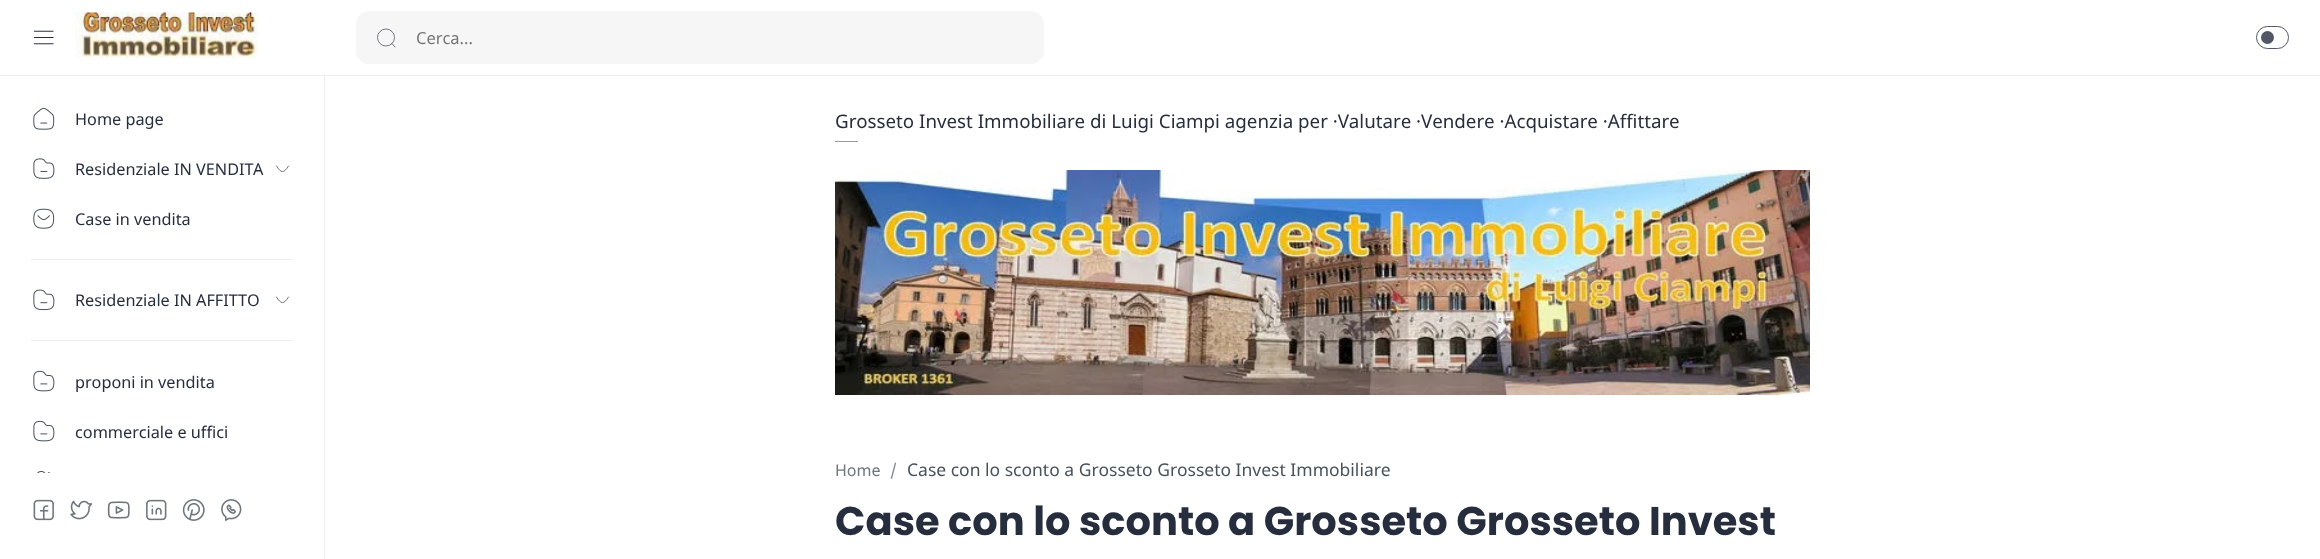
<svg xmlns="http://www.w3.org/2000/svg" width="2320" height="559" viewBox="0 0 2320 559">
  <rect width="100%" height="100%" fill="rgb(255,255,255)"/>
  <rect x="0" y="75" width="2320" height="1" fill="rgb(236,239,241)"/>
  <image x="33" y="30" width="21" height="15" href="pic1.png"/>
  <image x="75" y="12" width="183" height="46" href="pic2.png"/>
  <rect x="356" y="11" width="688" height="53" rx="13" fill="rgb(246,246,246)"/>
  <circle cx="386" cy="37.5" r="8.5" fill="none" stroke="rgb(100,105,117)" stroke-width="0.9"/>
  <path d="M392 43.5L395 47" fill="none" stroke="rgb(100,105,117)" stroke-width="0.9" stroke-linecap="round" stroke-linejoin="round"/>
  <text x="416" y="44" font-family="Noto Sans" font-size="16.5" fill="rgb(117,117,117)">Cerca...</text>
  <rect x="2256.5" y="26.5" width="32" height="22" rx="11" fill="none" stroke="rgb(81,87,100)"/>
  <circle cx="2267.5" cy="37.5" r="6.5" fill="rgb(81,87,100)"/>
  <rect x="324" y="76" width="1" height="483" fill="rgb(236,239,241)"/>
  <image x="33" y="107" width="22" height="23" href="pic3.png"/>
  <text x="75" y="125" font-family="Noto Sans" font-size="16.25" fill="rgb(38,45,61)">Home page</text>
  <image x="33" y="158" width="22" height="21" href="pic4.png"/>
  <text x="75" y="175" font-family="Noto Sans" font-size="16.25" fill="rgb(38,45,61)">Residenziale IN VENDITA</text>
  <path d="M288.5 166C284 173.5 281 173.5 276.5 166" fill="none" stroke="rgb(72,82,92)" stroke-width="0.8" stroke-linecap="round" stroke-linejoin="round"/>
  <image x="33" y="208" width="22" height="21" href="pic5.png"/>
  <text x="75" y="225" font-family="Noto Sans" font-size="16.25" fill="rgb(38,45,61)">Case in vendita</text>
  <rect x="31" y="259" width="262" height="1" fill="rgb(236,239,241)"/>
  <image x="33" y="289" width="22" height="22" href="pic6.png"/>
  <text x="75" y="306" font-family="Noto Sans" font-size="16.25" fill="rgb(38,45,61)">Residenziale IN AFFITTO</text>
  <path d="M288.5 297C284 304.5 281 304.5 276.5 297" fill="none" stroke="rgb(72,82,92)" stroke-width="0.8" stroke-linecap="round" stroke-linejoin="round"/>
  <rect x="31" y="340" width="262" height="1" fill="rgb(236,239,241)"/>
  <image x="33" y="370" width="22" height="22" href="pic7.png"/>
  <text x="75" y="388" font-family="Noto Sans" font-size="16.25" fill="rgb(38,45,61)">proponi in vendita</text>
  <image x="33" y="420" width="22" height="22" href="pic7.png"/>
  <text x="75" y="438" font-family="Noto Sans" font-size="16.25" fill="rgb(38,45,61)">commerciale e uffici</text>
  <image x="37" y="470" width="14" height="3" href="pic8.png"/>
  <image x="33" y="499" width="21" height="22" href="pic9.png"/>
  <image x="70" y="500" width="23" height="20" href="pic10.png"/>
  <image x="107" y="501" width="23" height="18" href="pic11.png"/>
  <image x="146" y="499" width="21" height="22" href="pic12.png"/>
  <image x="182" y="499" width="23" height="22" href="pic13.png"/>
  <image x="221" y="499" width="21" height="22" href="pic14.png"/>
  <text x="835" y="128" font-family="Noto Sans" font-size="18.75" fill="rgb(38,45,61)">Grosseto Invest Immobiliare di Luigi Ciampi agenzia per ·Valutare ·Vendere ·Acquistare ·Affittare</text>
  <rect x="835" y="141" width="23" height="1" fill="rgb(152,155,159)"/>
  <image x="835" y="170" width="975" height="225" href="pic15.png"/>
  <text x="835" y="476" font-family="Noto Sans" font-size="16" fill="rgb(109,117,125)">Home</text>
  <text x="890" y="476" font-family="Noto Sans" font-size="16" fill="rgb(127,134,141)">/</text>
  <text x="907" y="476" font-family="Noto Sans" font-size="17.5" fill="rgb(72,82,92)">Case con lo sconto a Grosseto Grosseto Invest Immobiliare</text>
  <text x="835" y="535" font-family="Poppins" font-size="40" font-weight="bold" fill="rgb(38,45,61)">Case con lo sconto a Grosseto Grosseto Invest</text>
</svg>
